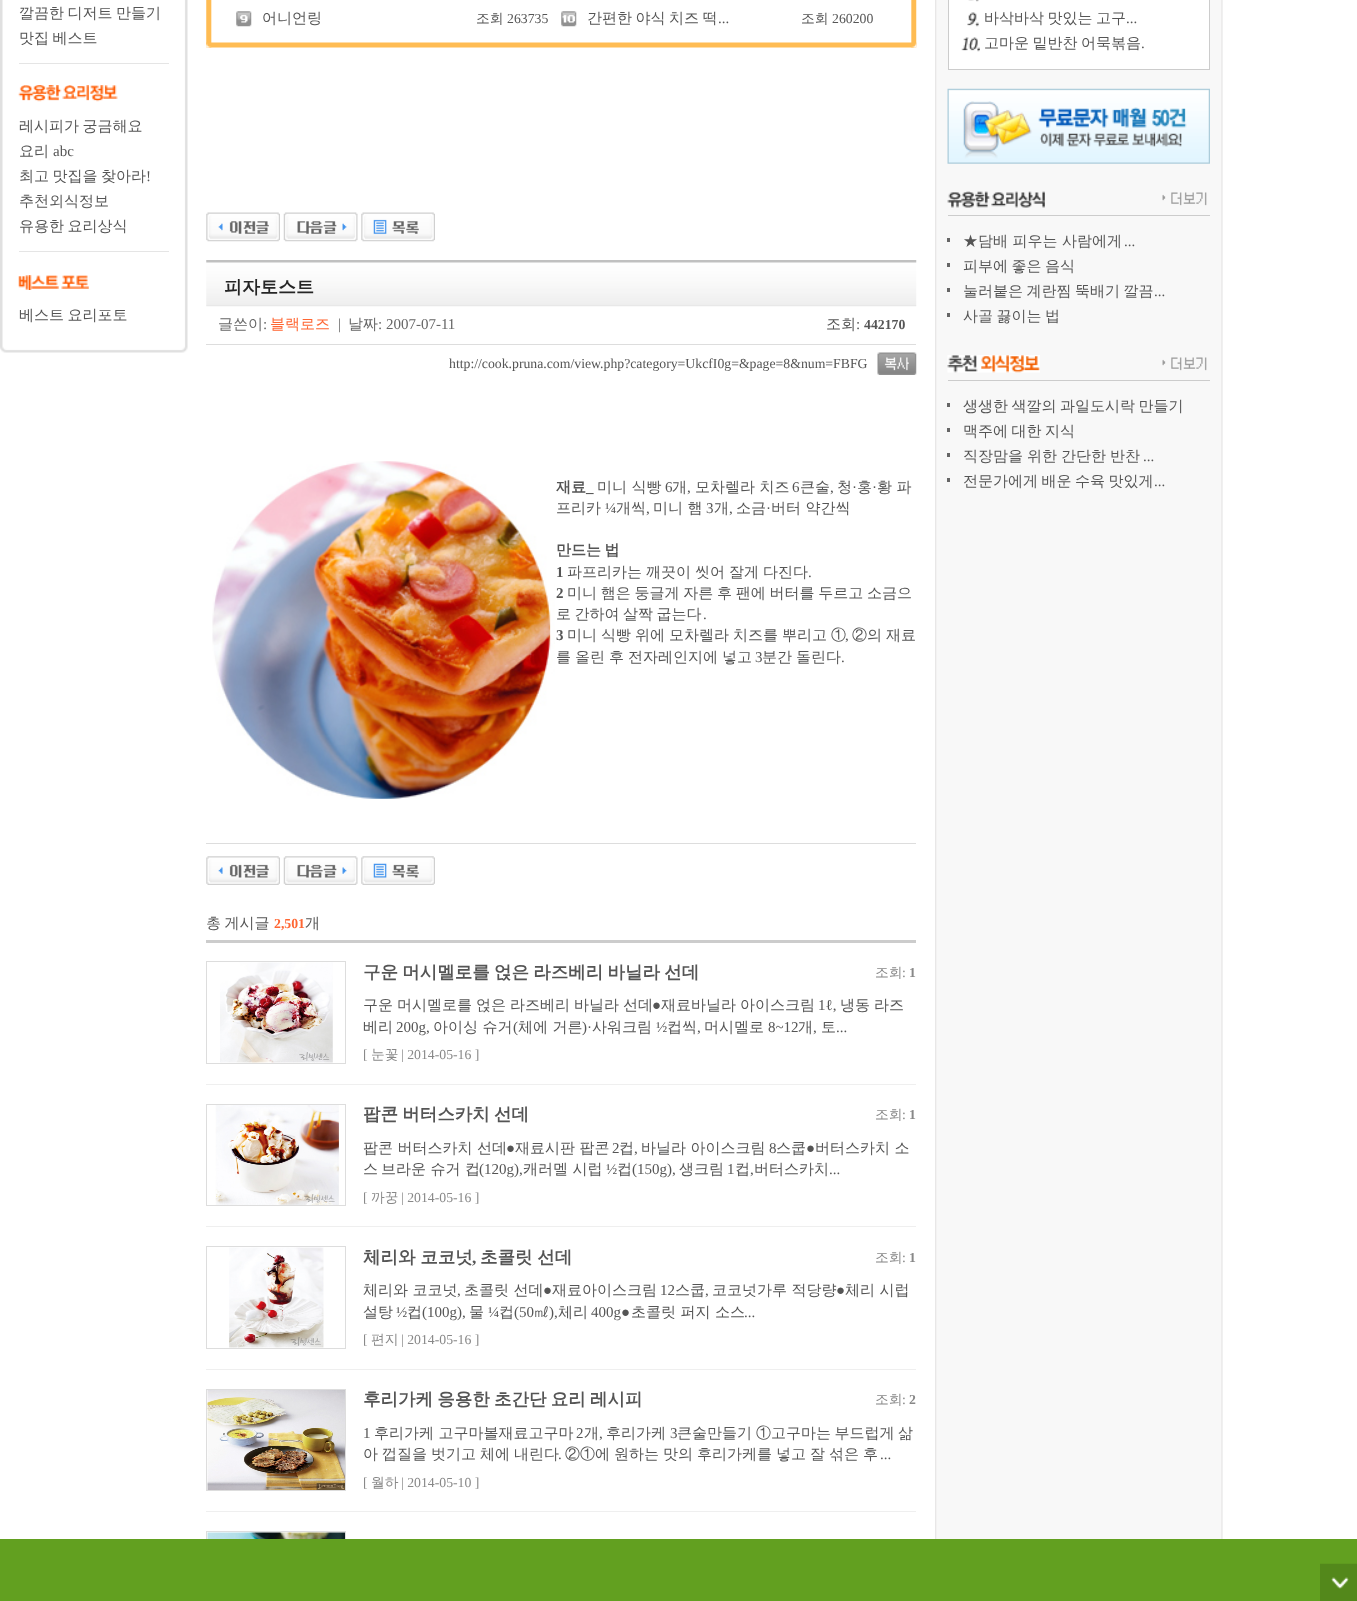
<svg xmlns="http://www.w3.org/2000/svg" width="1357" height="1601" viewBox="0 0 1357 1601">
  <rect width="100%" height="100%" fill="rgb(255,255,255)"/>
  <image x="0" y="0" width="188" height="340" href="pic1.png"/>
  <g font-family="WenQuanYi Zen Hei" font-size="15" font-weight="500" fill="rgb(85,85,85)">
    <text>
      <tspan x="19" y="18" word-spacing="-1">깔끔한 디저트 만들기</tspan>
      <tspan x="19" y="43" word-spacing="-1">맛집 베스트</tspan>
    </text>
  </g>
  <rect x="19" y="63" width="150" height="1" fill="rgb(229,229,229)"/>
  <image x="18" y="85" width="100" height="17" href="pic2.png"/>
  <g font-family="WenQuanYi Zen Hei" font-size="15" font-weight="500" fill="rgb(85,85,85)">
    <text>
      <tspan x="19" y="131" word-spacing="-1">레시피가 궁금해요</tspan>
      <tspan x="19" y="156">요리</tspan>
    </text>
  </g>
  <text x="53" y="156" font-family="Liberation Serif" font-size="15" fill="rgb(85,85,85)">abc</text>
  <text x="19" y="181" word-spacing="-1" font-family="WenQuanYi Zen Hei" font-size="15" font-weight="500" fill="rgb(85,85,85)">최고 맛집을 찾아라</text>
  <text x="146" y="181" font-family="Liberation Serif" font-size="15" fill="rgb(85,85,85)">!</text>
  <g font-family="WenQuanYi Zen Hei" font-size="15" font-weight="500" fill="rgb(85,85,85)">
    <text>
      <tspan x="19" y="206">추천외식정보</tspan>
      <tspan x="19" y="231" word-spacing="-1">유용한 요리상식</tspan>
    </text>
  </g>
  <rect x="19" y="251" width="150" height="1" fill="rgb(229,229,229)"/>
  <image x="18" y="275" width="71" height="15" href="pic3.png"/>
  <text x="19" y="320" word-spacing="-1" font-family="WenQuanYi Zen Hei" font-size="15" font-weight="500" fill="rgb(85,85,85)">베스트 요리포토</text>
  <image x="0" y="340" width="188" height="13" href="pic4.png"/>
  <image x="206" y="0" width="711" height="48" href="pic5.png"/>
  <image x="236" y="11" width="16" height="16" href="pic6.png"/>
  <text x="262" y="23" font-family="WenQuanYi Zen Hei" font-size="15" font-weight="500" fill="rgb(85,85,85)">어니언링</text>
  <text x="476" y="23" font-family="WenQuanYi Zen Hei" font-size="13.75" font-weight="500" fill="rgb(85,85,85)">조회</text>
  <text x="507" y="23" font-family="Liberation Serif" font-size="13.75" fill="rgb(85,85,85)">263735</text>
  <image x="561" y="11" width="16" height="16" href="pic7.png"/>
  <text x="587" y="23" word-spacing="-1" font-family="WenQuanYi Zen Hei" font-size="15" font-weight="500" fill="rgb(85,85,85)">간편한 야식 치즈 떡</text>
  <text x="718" y="23" font-family="Liberation Serif" font-size="15" fill="rgb(85,85,85)">...</text>
  <text x="801" y="23" font-family="WenQuanYi Zen Hei" font-size="13.75" font-weight="500" fill="rgb(85,85,85)">조회</text>
  <text x="832" y="23" font-family="Liberation Serif" font-size="13.75" fill="rgb(85,85,85)">260200</text>
  <image x="206" y="42" width="711" height="6" href="pic8.png"/>
  <image x="206" y="212" width="74" height="30" href="pic9.png"/>
  <image x="283" y="212" width="75" height="30" href="pic10.png"/>
  <image x="361" y="212" width="74" height="30" href="pic11.png"/>
  <image x="206" y="260" width="711" height="47" href="pic12.png"/>
  <text x="224" y="293" font-family="WenQuanYi Zen Hei" font-size="18" font-weight="bold" fill="rgb(37,37,37)">피자토스트</text>
  <text x="218" y="329" font-family="WenQuanYi Zen Hei" font-size="15" font-weight="500" fill="rgb(102,102,102)">글쓴이</text>
  <text x="263" y="329" font-family="Liberation Serif" font-size="15" fill="rgb(102,102,102)">:</text>
  <text x="270" y="329" font-family="WenQuanYi Zen Hei" font-size="15" font-weight="500" fill="rgb(255,102,51)">블랙로즈</text>
  <text x="338" y="329" font-family="Liberation Serif" font-size="15" fill="rgb(102,102,102)">|</text>
  <text x="348" y="329" font-family="WenQuanYi Zen Hei" font-size="15" font-weight="500" fill="rgb(102,102,102)">날짜</text>
  <text x="378" y="329" font-family="Liberation Serif" font-size="15" fill="rgb(102,102,102)">: 2007-07-11</text>
  <text x="826" y="329" font-family="WenQuanYi Zen Hei" font-size="15" font-weight="500" fill="rgb(85,85,85)">조회</text>
  <text x="856" y="329" font-family="Liberation Serif" font-size="15" fill="rgb(85,85,85)">:</text>
  <text x="864" y="329" font-family="Liberation Serif" font-size="13.75" font-weight="bold" fill="rgb(85,85,85)">442170</text>
  <rect x="206" y="344" width="710" height="1" fill="rgb(221,221,221)"/>
  <text x="449" y="368" font-family="Liberation Serif" font-size="13.75" fill="rgb(85,85,85)">http://cook.pruna.com/view.php?category=UkcfI0g=&amp;page=8&amp;num=FBFG</text>
  <image x="877" y="352" width="40" height="23" href="pic13.png"/>
  <image x="212" y="461" width="343" height="338" href="pic14.png"/>
  <text x="556" y="492" font-family="WenQuanYi Zen Hei" font-size="15" font-weight="bold" fill="rgb(85,85,85)">재료</text>
  <text x="597" y="492" font-family="WenQuanYi Zen Hei" font-size="15" font-weight="500" fill="rgb(85,85,85)">미니 식빵</text>
  <text x="665" y="492" font-family="Liberation Serif" font-size="15" fill="rgb(85,85,85)">6</text>
  <g font-family="WenQuanYi Zen Hei" font-size="15" font-weight="500" fill="rgb(85,85,85)">
    <text x="672" y="492">개</text>
    <text x="695" y="492">모차렐라 치즈</text>
  </g>
  <text x="792" y="492" font-family="Liberation Serif" font-size="15" fill="rgb(85,85,85)">6</text>
  <g font-family="WenQuanYi Zen Hei" font-size="15" font-weight="500" fill="rgb(85,85,85)">
    <text x="800" y="492">큰술</text>
    <text x="837" y="492">청</text>
  </g>
  <text x="852" y="492" font-family="Liberation Serif" font-size="15" fill="rgb(85,85,85)">·</text>
  <text x="857" y="492" font-family="WenQuanYi Zen Hei" font-size="15" font-weight="500" fill="rgb(85,85,85)">홍</text>
  <text x="872" y="492" font-family="Liberation Serif" font-size="15" fill="rgb(85,85,85)">·</text>
  <text x="877" y="492" font-family="WenQuanYi Zen Hei" font-size="15" font-weight="500" fill="rgb(85,85,85)">황 파</text>
  <text x="586" y="492" font-family="Liberation Serif" font-size="15" font-weight="bold" fill="rgb(85,85,85)">_</text>
  <g font-family="Liberation Serif" font-size="15" fill="rgb(85,85,85)">
    <text x="687" y="492">,</text>
    <text x="830" y="492">,</text>
  </g>
  <text x="556" y="513" font-family="WenQuanYi Zen Hei" font-size="15" font-weight="500" fill="rgb(85,85,85)">프리카</text>
  <text x="605" y="513" font-family="Liberation Serif" font-size="15" fill="rgb(85,85,85)">¼</text>
  <g font-family="WenQuanYi Zen Hei" font-size="15" font-weight="500" fill="rgb(85,85,85)">
    <text x="616" y="513">개씩</text>
    <text x="653" y="513">미니 햄</text>
  </g>
  <text x="706" y="513" font-family="Liberation Serif" font-size="15" fill="rgb(85,85,85)">3</text>
  <g font-family="WenQuanYi Zen Hei" font-size="15" font-weight="500" fill="rgb(85,85,85)">
    <text x="714" y="513">개</text>
    <text x="736" y="513">소금</text>
  </g>
  <text x="766" y="513" font-family="Liberation Serif" font-size="15" fill="rgb(85,85,85)">·</text>
  <text x="771" y="513" font-family="WenQuanYi Zen Hei" font-size="15" font-weight="500" fill="rgb(85,85,85)">버터 약간씩</text>
  <g font-family="Liberation Serif" font-size="15" fill="rgb(85,85,85)">
    <text x="646" y="513">,</text>
    <text x="729" y="513">,</text>
  </g>
  <text x="556" y="555" word-spacing="-1" font-family="WenQuanYi Zen Hei" font-size="15" font-weight="bold" fill="rgb(85,85,85)">만드는 법</text>
  <text x="556" y="577" font-family="Liberation Serif" font-size="15" font-weight="bold" fill="rgb(85,85,85)">1</text>
  <text x="567" y="577" word-spacing="-0.5" font-family="WenQuanYi Zen Hei" font-size="15" font-weight="500" fill="rgb(85,85,85)">파프리카는 깨끗이 씻어 잘게 다진다</text>
  <text x="808" y="577" font-family="Liberation Serif" font-size="15" fill="rgb(85,85,85)">.</text>
  <text x="556" y="598" font-family="Liberation Serif" font-size="15" font-weight="bold" fill="rgb(85,85,85)">2</text>
  <g font-family="WenQuanYi Zen Hei" font-size="15" font-weight="500" fill="rgb(85,85,85)">
    <text x="567" y="598" word-spacing="-0.75">미니 햄은 둥글게 자른 후 팬에 버터를 두르고 소금으</text>
    <text x="556" y="619" word-spacing="-1">로 간하여 살짝 굽는다</text>
  </g>
  <text x="703" y="619" font-family="Liberation Serif" font-size="15" fill="rgb(85,85,85)">.</text>
  <text x="556" y="640" font-family="Liberation Serif" font-size="15" font-weight="bold" fill="rgb(85,85,85)">3</text>
  <text x="567" y="640" word-spacing="-0.5" font-family="WenQuanYi Zen Hei" font-size="15" font-weight="500" fill="rgb(85,85,85)">미니 식빵 위에 모차렐라 치즈를 뿌리고 ①</text>
  <text x="845" y="640" font-family="Liberation Serif" font-size="15" fill="rgb(85,85,85)">,</text>
  <g font-family="WenQuanYi Zen Hei" font-size="15" font-weight="500" fill="rgb(85,85,85)">
    <text x="852" y="640" word-spacing="-0.5">②의 재료</text>
    <text x="556" y="662" word-spacing="-0.5">를 올린 후 전자레인지에 넣고</text>
  </g>
  <text x="755" y="662" font-family="Liberation Serif" font-size="15" fill="rgb(85,85,85)">3</text>
  <text x="762" y="662" word-spacing="-0.5" font-family="WenQuanYi Zen Hei" font-size="15" font-weight="500" fill="rgb(85,85,85)">분간 돌린다</text>
  <text x="841" y="662" font-family="Liberation Serif" font-size="15" fill="rgb(85,85,85)">.</text>
  <rect x="206" y="843" width="710" height="1" fill="rgb(221,221,221)"/>
  <image x="206" y="856" width="74" height="29" href="pic15.png"/>
  <image x="283" y="856" width="75" height="29" href="pic16.png"/>
  <image x="361" y="856" width="74" height="29" href="pic17.png"/>
  <text x="206" y="928" word-spacing="-1" font-family="WenQuanYi Zen Hei" font-size="15" font-weight="500" fill="rgb(85,85,85)">총 게시글</text>
  <text x="274" y="928" font-family="Liberation Serif" font-size="13.75" font-weight="bold" fill="rgb(255,102,51)">2,501</text>
  <text x="305" y="928" font-family="WenQuanYi Zen Hei" font-size="15" font-weight="500" fill="rgb(85,85,85)">개</text>
  <rect x="206" y="940" width="710" height="3" fill="rgb(204,204,204)"/>
  <rect x="206.5" y="961.5" width="139" height="102" fill="none" stroke="rgb(221,221,221)"/>
  <image x="220" y="962" width="113" height="101" href="pic18.png"/>
  <text x="363" y="978" word-spacing="-1" font-family="WenQuanYi Zen Hei" font-size="17.5" font-weight="bold" fill="rgb(85,85,85)">구운 머시멜로를 얹은 라즈베리 바닐라 선데</text>
  <text x="875" y="977" font-family="WenQuanYi Zen Hei" font-size="13.75" font-weight="500" fill="rgb(136,136,136)">조회</text>
  <text x="902" y="977" font-family="Liberation Serif" font-size="13.75" fill="rgb(136,136,136)">:</text>
  <text x="909" y="977" font-family="Liberation Serif" font-size="13.75" font-weight="bold" fill="rgb(136,136,136)">1</text>
  <text x="363" y="1010" word-spacing="-0.5" font-family="WenQuanYi Zen Hei" font-size="15" font-weight="500" fill="rgb(85,85,85)">구운 머시멜로를 얹은 라즈베리 바닐라 선데</text>
  <text x="652" y="1010" font-family="Liberation Serif" font-size="15" fill="rgb(85,85,85)">●</text>
  <text x="661" y="1010" word-spacing="-0.5" font-family="WenQuanYi Zen Hei" font-size="15" font-weight="500" fill="rgb(85,85,85)">재료바닐라 아이스크림</text>
  <text x="818" y="1010" font-family="Liberation Serif" font-size="15" fill="rgb(85,85,85)">1ℓ,</text>
  <g font-family="WenQuanYi Zen Hei" font-size="15" font-weight="500" fill="rgb(85,85,85)">
    <text x="840" y="1010" word-spacing="-0.5">냉동 라즈</text>
    <text x="363" y="1032">베리</text>
  </g>
  <text x="396" y="1032" font-family="Liberation Serif" font-size="15" fill="rgb(85,85,85)">200g,</text>
  <text x="433" y="1032" font-family="WenQuanYi Zen Hei" font-size="15" font-weight="500" fill="rgb(85,85,85)">아이싱 슈거</text>
  <text x="513" y="1032" font-family="Liberation Serif" font-size="15" fill="rgb(85,85,85)">(</text>
  <text x="518" y="1032" font-family="WenQuanYi Zen Hei" font-size="15" font-weight="500" fill="rgb(85,85,85)">체에 거른</text>
  <text x="582" y="1032" font-family="Liberation Serif" font-size="15" fill="rgb(85,85,85)">)·</text>
  <text x="592" y="1032" font-family="WenQuanYi Zen Hei" font-size="15" font-weight="500" fill="rgb(85,85,85)">사워크림</text>
  <text x="656" y="1032" font-family="Liberation Serif" font-size="15" fill="rgb(85,85,85)">½</text>
  <text x="667" y="1032" font-family="WenQuanYi Zen Hei" font-size="15" font-weight="500" fill="rgb(85,85,85)">컵씩</text>
  <text x="697" y="1032" font-family="Liberation Serif" font-size="15" fill="rgb(85,85,85)">,</text>
  <text x="704" y="1032" font-family="WenQuanYi Zen Hei" font-size="15" font-weight="500" fill="rgb(85,85,85)">머시멜로</text>
  <text x="768" y="1032" font-family="Liberation Serif" font-size="15" fill="rgb(85,85,85)">8~12</text>
  <text x="798" y="1032" font-family="WenQuanYi Zen Hei" font-size="15" font-weight="500" fill="rgb(85,85,85)">개</text>
  <text x="813" y="1032" font-family="Liberation Serif" font-size="15" fill="rgb(85,85,85)">,</text>
  <text x="821" y="1032" font-family="WenQuanYi Zen Hei" font-size="15" font-weight="500" fill="rgb(85,85,85)">토</text>
  <text x="836" y="1032" font-family="Liberation Serif" font-size="15" fill="rgb(85,85,85)">...</text>
  <text x="363" y="1059" font-family="Liberation Serif" font-size="13.75" fill="rgb(136,136,136)">[</text>
  <text x="371" y="1059" font-family="WenQuanYi Zen Hei" font-size="13.75" font-weight="500" fill="rgb(136,136,136)">눈꽃</text>
  <text x="401" y="1059" font-family="Liberation Serif" font-size="13.75" fill="rgb(136,136,136)">| 2014-05-16 ]</text>
  <rect x="206" y="1084" width="710" height="1" fill="rgb(239,239,239)"/>
  <rect x="206.5" y="1104.5" width="139" height="101" fill="none" stroke="rgb(221,221,221)"/>
  <image x="215" y="1105" width="124" height="100" href="pic19.png"/>
  <text x="363" y="1120" word-spacing="-1" font-family="WenQuanYi Zen Hei" font-size="17.5" font-weight="bold" fill="rgb(85,85,85)">팝콘 버터스카치 선데</text>
  <text x="875" y="1119" font-family="WenQuanYi Zen Hei" font-size="13.75" font-weight="500" fill="rgb(136,136,136)">조회</text>
  <text x="902" y="1119" font-family="Liberation Serif" font-size="13.75" fill="rgb(136,136,136)">:</text>
  <text x="909" y="1119" font-family="Liberation Serif" font-size="13.75" font-weight="bold" fill="rgb(136,136,136)">1</text>
  <text x="363" y="1153" font-family="WenQuanYi Zen Hei" font-size="15" font-weight="500" fill="rgb(85,85,85)">팝콘 버터스카치 선데</text>
  <text x="506" y="1153" font-family="Liberation Serif" font-size="15" fill="rgb(85,85,85)">●</text>
  <text x="515" y="1153" font-family="WenQuanYi Zen Hei" font-size="15" font-weight="500" fill="rgb(85,85,85)">재료시판 팝콘</text>
  <text x="612" y="1153" font-family="Liberation Serif" font-size="15" fill="rgb(85,85,85)">2</text>
  <g font-family="WenQuanYi Zen Hei" font-size="15" font-weight="500" fill="rgb(85,85,85)">
    <text x="619" y="1153">컵</text>
    <text x="641" y="1153">바닐라 아이스크림</text>
  </g>
  <text x="769" y="1153" font-family="Liberation Serif" font-size="15" fill="rgb(85,85,85)">8</text>
  <text x="776" y="1153" font-family="WenQuanYi Zen Hei" font-size="15" font-weight="500" fill="rgb(85,85,85)">스쿱</text>
  <text x="806" y="1153" font-family="Liberation Serif" font-size="15" fill="rgb(85,85,85)">●</text>
  <text x="815" y="1153" font-family="WenQuanYi Zen Hei" font-size="15" font-weight="500" fill="rgb(85,85,85)">버터스카치 소</text>
  <text x="634" y="1153" font-family="Liberation Serif" font-size="15" fill="rgb(85,85,85)">,</text>
  <g font-family="WenQuanYi Zen Hei" font-size="15" font-weight="500" fill="rgb(85,85,85)">
    <text x="363" y="1174">스</text>
    <text x="381" y="1174">브라운 슈거 컵</text>
  </g>
  <text x="479" y="1174" font-family="Liberation Serif" font-size="15" fill="rgb(85,85,85)">(120g),</text>
  <text x="523" y="1174" font-family="WenQuanYi Zen Hei" font-size="15" font-weight="500" fill="rgb(85,85,85)">캐러멜 시럽</text>
  <text x="606" y="1174" font-family="Liberation Serif" font-size="15" fill="rgb(85,85,85)">½</text>
  <text x="617" y="1174" font-family="WenQuanYi Zen Hei" font-size="15" font-weight="500" fill="rgb(85,85,85)">컵</text>
  <text x="632" y="1174" font-family="Liberation Serif" font-size="15" fill="rgb(85,85,85)">(150g),</text>
  <text x="679" y="1174" font-family="WenQuanYi Zen Hei" font-size="15" font-weight="500" fill="rgb(85,85,85)">생크림</text>
  <text x="727" y="1174" font-family="Liberation Serif" font-size="15" fill="rgb(85,85,85)">1</text>
  <g font-family="WenQuanYi Zen Hei" font-size="15" font-weight="500" fill="rgb(85,85,85)">
    <text x="735" y="1174">컵</text>
    <text x="754" y="1174">버터스카치</text>
  </g>
  <g font-family="Liberation Serif" font-size="15" fill="rgb(85,85,85)">
    <text x="750" y="1174">,</text>
    <text x="829" y="1174">...</text>
  </g>
  <text x="363" y="1202" font-family="Liberation Serif" font-size="13.75" fill="rgb(136,136,136)">[</text>
  <text x="371" y="1202" font-family="WenQuanYi Zen Hei" font-size="13.75" font-weight="500" fill="rgb(136,136,136)">까꿍</text>
  <text x="401" y="1202" font-family="Liberation Serif" font-size="13.75" fill="rgb(136,136,136)">| 2014-05-16 ]</text>
  <rect x="206" y="1226" width="710" height="1" fill="rgb(239,239,239)"/>
  <rect x="206.5" y="1246.5" width="139" height="102" fill="none" stroke="rgb(221,221,221)"/>
  <image x="229" y="1247" width="95" height="101" href="pic20.png"/>
  <text x="363" y="1263" word-spacing="-0.5" font-family="WenQuanYi Zen Hei" font-size="17.5" font-weight="bold" fill="rgb(85,85,85)">체리와 코코넛</text>
  <text x="472" y="1263" font-family="Liberation Serif" font-size="17.5" font-weight="bold" fill="rgb(85,85,85)">,</text>
  <text x="480" y="1263" word-spacing="-0.5" font-family="WenQuanYi Zen Hei" font-size="17.5" font-weight="bold" fill="rgb(85,85,85)">초콜릿 선데</text>
  <text x="875" y="1262" font-family="WenQuanYi Zen Hei" font-size="13.75" font-weight="500" fill="rgb(136,136,136)">조회</text>
  <text x="902" y="1262" font-family="Liberation Serif" font-size="13.75" fill="rgb(136,136,136)">:</text>
  <text x="909" y="1262" font-family="Liberation Serif" font-size="13.75" font-weight="bold" fill="rgb(136,136,136)">1</text>
  <g font-family="WenQuanYi Zen Hei" font-size="15" font-weight="500" fill="rgb(85,85,85)">
    <text x="363" y="1295">체리와 코코넛</text>
    <text x="464" y="1295">초콜릿 선데</text>
  </g>
  <text x="543" y="1295" font-family="Liberation Serif" font-size="15" fill="rgb(85,85,85)">●</text>
  <text x="552" y="1295" font-family="WenQuanYi Zen Hei" font-size="15" font-weight="500" fill="rgb(85,85,85)">재료아이스크림</text>
  <text x="660" y="1295" font-family="Liberation Serif" font-size="15" fill="rgb(85,85,85)">12</text>
  <g font-family="WenQuanYi Zen Hei" font-size="15" font-weight="500" fill="rgb(85,85,85)">
    <text x="675" y="1295">스쿱</text>
    <text x="712" y="1295">코코넛가루 적당량</text>
  </g>
  <text x="836" y="1295" font-family="Liberation Serif" font-size="15" fill="rgb(85,85,85)">●</text>
  <text x="845" y="1295" font-family="WenQuanYi Zen Hei" font-size="15" font-weight="500" fill="rgb(85,85,85)">체리 시럽</text>
  <g font-family="Liberation Serif" font-size="15" fill="rgb(85,85,85)">
    <text x="457" y="1295">,</text>
    <text x="705" y="1295">,</text>
  </g>
  <text x="363" y="1317" font-family="WenQuanYi Zen Hei" font-size="15" font-weight="500" fill="rgb(85,85,85)">설탕</text>
  <text x="396" y="1317" font-family="Liberation Serif" font-size="15" fill="rgb(85,85,85)">½</text>
  <text x="407" y="1317" font-family="WenQuanYi Zen Hei" font-size="15" font-weight="500" fill="rgb(85,85,85)">컵</text>
  <text x="422" y="1317" font-family="Liberation Serif" font-size="15" fill="rgb(85,85,85)">(100g),</text>
  <text x="469" y="1317" font-family="WenQuanYi Zen Hei" font-size="15" font-weight="500" fill="rgb(85,85,85)">물</text>
  <text x="488" y="1317" font-family="Liberation Serif" font-size="15" fill="rgb(85,85,85)">¼</text>
  <text x="499" y="1317" font-family="WenQuanYi Zen Hei" font-size="15" font-weight="500" fill="rgb(85,85,85)">컵</text>
  <text x="514" y="1317" font-family="Liberation Serif" font-size="15" fill="rgb(85,85,85)">(50</text>
  <text x="534" y="1317" font-family="WenQuanYi Zen Hei" font-size="15" font-weight="500" fill="rgb(85,85,85)">㎖</text>
  <text x="549" y="1317" font-family="Liberation Serif" font-size="15" fill="rgb(85,85,85)">),</text>
  <text x="558" y="1317" font-family="WenQuanYi Zen Hei" font-size="15" font-weight="500" fill="rgb(85,85,85)">체리</text>
  <text x="591" y="1317" font-family="Liberation Serif" font-size="15" fill="rgb(85,85,85)">400g●</text>
  <text x="631" y="1317" font-family="WenQuanYi Zen Hei" font-size="15" font-weight="500" fill="rgb(85,85,85)">초콜릿 퍼지 소스</text>
  <text x="744" y="1317" font-family="Liberation Serif" font-size="15" fill="rgb(85,85,85)">...</text>
  <text x="363" y="1344" font-family="Liberation Serif" font-size="13.75" fill="rgb(136,136,136)">[</text>
  <text x="371" y="1344" font-family="WenQuanYi Zen Hei" font-size="13.75" font-weight="500" fill="rgb(136,136,136)">편지</text>
  <text x="401" y="1344" font-family="Liberation Serif" font-size="13.75" fill="rgb(136,136,136)">| 2014-05-16 ]</text>
  <rect x="206" y="1369" width="710" height="1" fill="rgb(239,239,239)"/>
  <rect x="206.5" y="1389.5" width="139" height="101" fill="none" stroke="rgb(221,221,221)"/>
  <image x="207" y="1390" width="138" height="100" href="pic21.png"/>
  <text x="363" y="1405" word-spacing="-1" font-family="WenQuanYi Zen Hei" font-size="17.5" font-weight="bold" fill="rgb(85,85,85)">후리가케 응용한 초간단 요리 레시피</text>
  <text x="875" y="1404" font-family="WenQuanYi Zen Hei" font-size="13.75" font-weight="500" fill="rgb(136,136,136)">조회</text>
  <text x="902" y="1404" font-family="Liberation Serif" font-size="13.75" fill="rgb(136,136,136)">:</text>
  <text x="909" y="1404" font-family="Liberation Serif" font-size="13.75" font-weight="bold" fill="rgb(136,136,136)">2</text>
  <text x="363" y="1438" font-family="Liberation Serif" font-size="15" fill="rgb(85,85,85)">1</text>
  <text x="374" y="1438" font-family="WenQuanYi Zen Hei" font-size="15" font-weight="500" fill="rgb(85,85,85)">후리가케 고구마볼재료고구마</text>
  <text x="576" y="1438" font-family="Liberation Serif" font-size="15" fill="rgb(85,85,85)">2</text>
  <text x="584" y="1438" font-family="WenQuanYi Zen Hei" font-size="15" font-weight="500" fill="rgb(85,85,85)">개</text>
  <text x="599" y="1438" font-family="Liberation Serif" font-size="15" fill="rgb(85,85,85)">,</text>
  <text x="606" y="1438" font-family="WenQuanYi Zen Hei" font-size="15" font-weight="500" fill="rgb(85,85,85)">후리가케</text>
  <text x="670" y="1438" font-family="Liberation Serif" font-size="15" fill="rgb(85,85,85)">3</text>
  <g font-family="WenQuanYi Zen Hei" font-size="15" font-weight="500" fill="rgb(85,85,85)">
    <text x="677" y="1438">큰술만들기</text>
    <text x="756" y="1438" word-spacing="-1">①고구마는 부드럽게 삶</text>
    <text x="363" y="1459" word-spacing="-0.5">아 껍질을 벗기고 체에 내린다</text>
  </g>
  <text x="558" y="1459" font-family="Liberation Serif" font-size="15" fill="rgb(85,85,85)">.</text>
  <text x="565" y="1459" word-spacing="-0.5" font-family="WenQuanYi Zen Hei" font-size="15" font-weight="500" fill="rgb(85,85,85)">②①에 원하는 맛의 후리가케를 넣고 잘 섞은 후</text>
  <text x="880" y="1459" font-family="Liberation Serif" font-size="15" fill="rgb(85,85,85)">...</text>
  <text x="363" y="1487" font-family="Liberation Serif" font-size="13.75" fill="rgb(136,136,136)">[</text>
  <text x="371" y="1487" font-family="WenQuanYi Zen Hei" font-size="13.75" font-weight="500" fill="rgb(136,136,136)">월하</text>
  <text x="401" y="1487" font-family="Liberation Serif" font-size="13.75" fill="rgb(136,136,136)">| 2014-05-10 ]</text>
  <rect x="206" y="1511" width="710" height="1" fill="rgb(239,239,239)"/>
  <rect x="206.5" y="1531.5" width="139" height="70" fill="none" stroke="rgb(221,221,221)"/>
  <image x="207" y="1532" width="138" height="7" href="pic22.png"/>
  <rect x="1222" y="0" width="1" height="1539" fill="rgb(248,248,248)"/>
  <image x="935" y="0" width="288" height="1539" href="pic23.png"/>
  <rect x="948.5" y="-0.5" width="261" height="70" fill="rgb(255,255,255)" stroke="rgb(204,204,204)"/>
  <image x="968" y="0" width="11" height="2" href="pic24.png"/>
  <image x="967" y="12" width="12" height="15" href="pic25.png"/>
  <text x="984" y="23" word-spacing="-1" font-family="WenQuanYi Zen Hei" font-size="15" font-weight="500" fill="rgb(85,85,85)">바삭바삭 맛있는 고구</text>
  <text x="1126" y="23" font-family="Liberation Serif" font-size="15" fill="rgb(85,85,85)">...</text>
  <image x="961" y="37" width="19" height="15" href="pic26.png"/>
  <text x="984" y="48" word-spacing="-1" font-family="WenQuanYi Zen Hei" font-size="15" font-weight="500" fill="rgb(85,85,85)">고마운 밑반찬 어묵볶음</text>
  <text x="1141" y="48" font-family="Liberation Serif" font-size="15" fill="rgb(85,85,85)">.</text>
  <image x="947" y="88" width="263" height="76" href="pic27.png"/>
  <image x="947" y="191" width="98" height="17" href="pic28.png"/>
  <image x="1162" y="192" width="45" height="14" href="pic29.png"/>
  <rect x="948" y="215" width="262" height="1" fill="rgb(204,204,204)"/>
  <rect x="947" y="238" width="3" height="4" fill="rgb(102,102,102)"/>
  <text x="963" y="246" font-family="WenQuanYi Zen Hei" font-size="15" font-weight="500" fill="rgb(85,85,85)">★담배 피우는 사람에게</text>
  <text x="1124" y="246" font-family="Liberation Serif" font-size="15" fill="rgb(85,85,85)">...</text>
  <rect x="947" y="263" width="3" height="4" fill="rgb(102,102,102)"/>
  <text x="963" y="271" word-spacing="-1" font-family="WenQuanYi Zen Hei" font-size="15" font-weight="500" fill="rgb(85,85,85)">피부에 좋은 음식</text>
  <rect x="947" y="288" width="3" height="4" fill="rgb(102,102,102)"/>
  <text x="963" y="296" word-spacing="-1" font-family="WenQuanYi Zen Hei" font-size="15" font-weight="500" fill="rgb(85,85,85)">눌러붙은 계란찜 뚝배기 깔끔</text>
  <text x="1154" y="296" font-family="Liberation Serif" font-size="15" fill="rgb(85,85,85)">...</text>
  <rect x="947" y="313" width="3" height="4" fill="rgb(102,102,102)"/>
  <text x="963" y="321" word-spacing="-1" font-family="WenQuanYi Zen Hei" font-size="15" font-weight="500" fill="rgb(85,85,85)">사골 끓이는 법</text>
  <image x="947" y="355" width="93" height="18" href="pic30.png"/>
  <image x="1162" y="357" width="45" height="14" href="pic29.png"/>
  <rect x="948" y="380" width="262" height="1" fill="rgb(204,204,204)"/>
  <rect x="947" y="403" width="3" height="4" fill="rgb(102,102,102)"/>
  <text x="963" y="411" word-spacing="-1" font-family="WenQuanYi Zen Hei" font-size="15" font-weight="500" fill="rgb(85,85,85)">생생한 색깔의 과일도시락 만들기</text>
  <rect x="947" y="428" width="3" height="4" fill="rgb(102,102,102)"/>
  <text x="963" y="436" word-spacing="-1" font-family="WenQuanYi Zen Hei" font-size="15" font-weight="500" fill="rgb(85,85,85)">맥주에 대한 지식</text>
  <rect x="947" y="453" width="3" height="4" fill="rgb(102,102,102)"/>
  <text x="963" y="461" word-spacing="-0.5" font-family="WenQuanYi Zen Hei" font-size="15" font-weight="500" fill="rgb(85,85,85)">직장맘을 위한 간단한 반찬</text>
  <text x="1143" y="461" font-family="Liberation Serif" font-size="15" fill="rgb(85,85,85)">...</text>
  <rect x="947" y="478" width="3" height="4" fill="rgb(102,102,102)"/>
  <text x="963" y="486" word-spacing="-1" font-family="WenQuanYi Zen Hei" font-size="15" font-weight="500" fill="rgb(85,85,85)">전문가에게 배운 수육 맛있게</text>
  <text x="1154" y="486" font-family="Liberation Serif" font-size="15" fill="rgb(85,85,85)">...</text>
  <rect x="0" y="1539" width="1357" height="62" fill="rgb(98,160,32)"/>
  <image x="1320" y="1563" width="37" height="38" href="pic31.png"/>
</svg>
